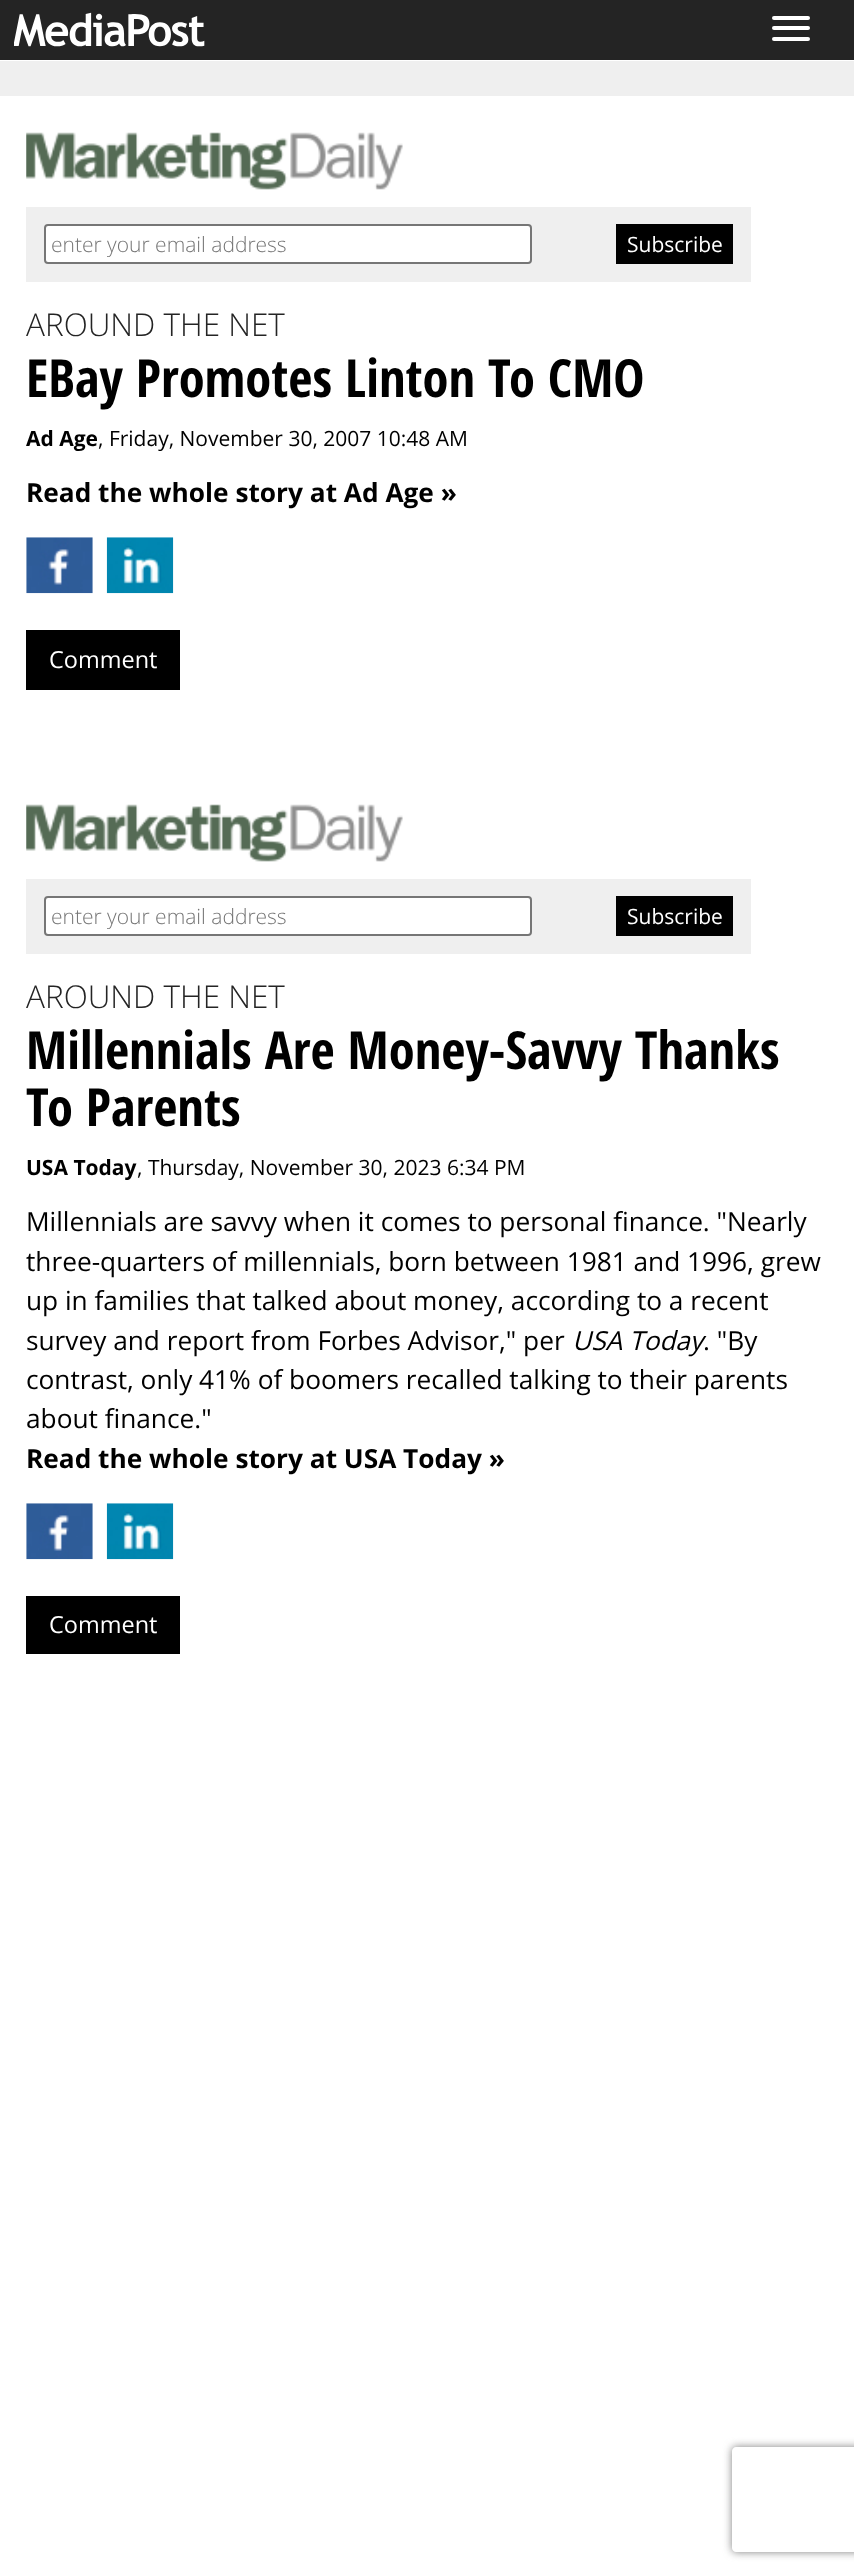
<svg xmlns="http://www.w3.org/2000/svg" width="854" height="2575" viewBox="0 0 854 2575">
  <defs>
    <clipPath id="clip1"><path d="M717 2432H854V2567H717ZM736 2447H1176C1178 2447 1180 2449 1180 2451V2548C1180 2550 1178 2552 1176 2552H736C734 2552 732 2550 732 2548V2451C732 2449 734 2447 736 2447Z" clip-rule="evenodd"/></clipPath>
  </defs>
  <rect width="100%" height="100%" fill="rgb(255,255,255)"/>
  <rect x="0" y="0" width="854" height="60" fill="rgb(36,36,36)"/>
  <image x="14" y="12" width="191" height="35" href="pic1.png"/>
  <rect x="772" y="16" width="38" height="4" rx="2" fill="rgb(255,255,255)"/>
  <rect x="772" y="26" width="38" height="4" rx="2" fill="rgb(255,255,255)"/>
  <rect x="772" y="37" width="38" height="4" rx="2" fill="rgb(255,255,255)"/>
  <rect x="0" y="61" width="854" height="35" fill="rgb(239,239,239)"/>
  <image x="26" y="132" width="377" height="58" href="pic2.png"/>
  <rect x="26" y="207" width="725" height="75" fill="rgb(239,239,239)"/>
  <rect x="45" y="225" width="486" height="38" rx="3" fill="rgb(255,255,255)" stroke="rgb(118,118,118)" stroke-width="2"/>
  <text x="51" y="252" font-family="Open Sans" font-size="21" font-weight="300" fill="rgb(117,117,117)">enter your email address</text>
  <rect x="616" y="224" width="117" height="40" fill="rgb(0,0,0)"/>
  <text x="627" y="252" font-family="Open Sans" font-size="21" fill="rgb(255,255,255)">Subscribe</text>
  <g clip-path="url(#clip1)">
    <rect x="732" y="2447" width="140" height="105" rx="4" fill="rgb(128,128,128)" filter="blur(4.5px)"/>
  </g>
  <text x="26" y="336" font-family="Open Sans" font-size="31.5" font-weight="300" fill="rgb(36,36,36)">AROUND THE NET</text>
  <text x="26" y="397" font-family="Open Sans Condensed" font-size="52.5" font-weight="bold" fill="rgb(0,0,0)">EBay Promotes Linton To CMO</text>
  <text x="26" y="446" font-family="Open Sans" font-size="21" font-weight="bold" fill="rgb(0,0,0)">Ad Age</text>
  <text x="98" y="446" font-family="Open Sans" font-size="21" fill="rgb(0,0,0)">, Friday, November 30, 2007 10:48 AM</text>
  <text x="26" y="502" font-family="Open Sans" font-size="26.25" font-weight="bold" fill="rgb(0,0,0)">Read the whole story at Ad Age »</text>
  <image x="26" y="537" width="67" height="57" href="pic3.png"/>
  <image x="106" y="537" width="68" height="57" href="pic4.png"/>
  <rect x="26" y="630" width="154" height="60" fill="rgb(0,0,0)"/>
  <text x="49" y="668" font-family="Open Sans" font-size="23.5" fill="rgb(255,255,255)">Comment</text>
  <image x="26" y="804" width="377" height="58" href="pic2.png"/>
  <rect x="26" y="879" width="725" height="75" fill="rgb(239,239,239)"/>
  <rect x="45" y="897" width="486" height="38" rx="3" fill="rgb(255,255,255)" stroke="rgb(118,118,118)" stroke-width="2"/>
  <text x="51" y="924" font-family="Open Sans" font-size="21" font-weight="300" fill="rgb(117,117,117)">enter your email address</text>
  <rect x="616" y="896" width="117" height="40" fill="rgb(0,0,0)"/>
  <text x="627" y="924" font-family="Open Sans" font-size="21" fill="rgb(255,255,255)">Subscribe</text>
  <text x="26" y="1008" font-family="Open Sans" font-size="31.5" font-weight="300" fill="rgb(36,36,36)">AROUND THE NET</text>
  <g font-family="Open Sans Condensed" font-size="52.5" font-weight="bold" fill="rgb(0,0,0)">
    <text>
      <tspan x="26" y="1069">Millennials Are Money-Savvy Thanks</tspan>
      <tspan x="26" y="1126">To Parents</tspan>
    </text>
  </g>
  <text x="26" y="1175" font-family="Open Sans" font-size="21" font-weight="bold" fill="rgb(0,0,0)">USA Today</text>
  <text x="137" y="1175" font-family="Open Sans" font-size="21" fill="rgb(0,0,0)">, Thursday, November 30, 2023 6:34 PM</text>
  <g font-family="Open Sans" font-size="26.25" fill="rgb(0,0,0)">
    <text>
      <tspan x="26" y="1231">Millennials are savvy when it comes to personal finance. "Nearly</tspan>
      <tspan x="26" y="1271">three-quarters of millennials, born between 1981 and 1996, grew</tspan>
      <tspan x="26" y="1310">up in families that talked about money, according to a recent</tspan>
      <tspan x="26" y="1350">survey and report from Forbes Advisor," per</tspan>
    </text>
  </g>
  <text x="572" y="1350" font-family="Open Sans" font-size="26.25" font-style="italic" fill="rgb(0,0,0)">USA Today</text>
  <g font-family="Open Sans" font-size="26.25" fill="rgb(0,0,0)">
    <text x="703" y="1350">. "By</text>
    <text>
      <tspan x="26" y="1389">contrast, only 41% of boomers recalled talking to their parents</tspan>
      <tspan x="26" y="1428">about finance."</tspan>
    </text>
  </g>
  <text x="26" y="1468" font-family="Open Sans" font-size="26.25" font-weight="bold" fill="rgb(0,0,0)">Read the whole story at USA Today »</text>
  <image x="26" y="1503" width="67" height="57" href="pic3.png"/>
  <image x="106" y="1503" width="68" height="57" href="pic4.png"/>
  <rect x="26" y="1596" width="154" height="58" fill="rgb(0,0,0)"/>
  <text x="49" y="1633" font-family="Open Sans" font-size="23.5" fill="rgb(255,255,255)">Comment</text>
</svg>
